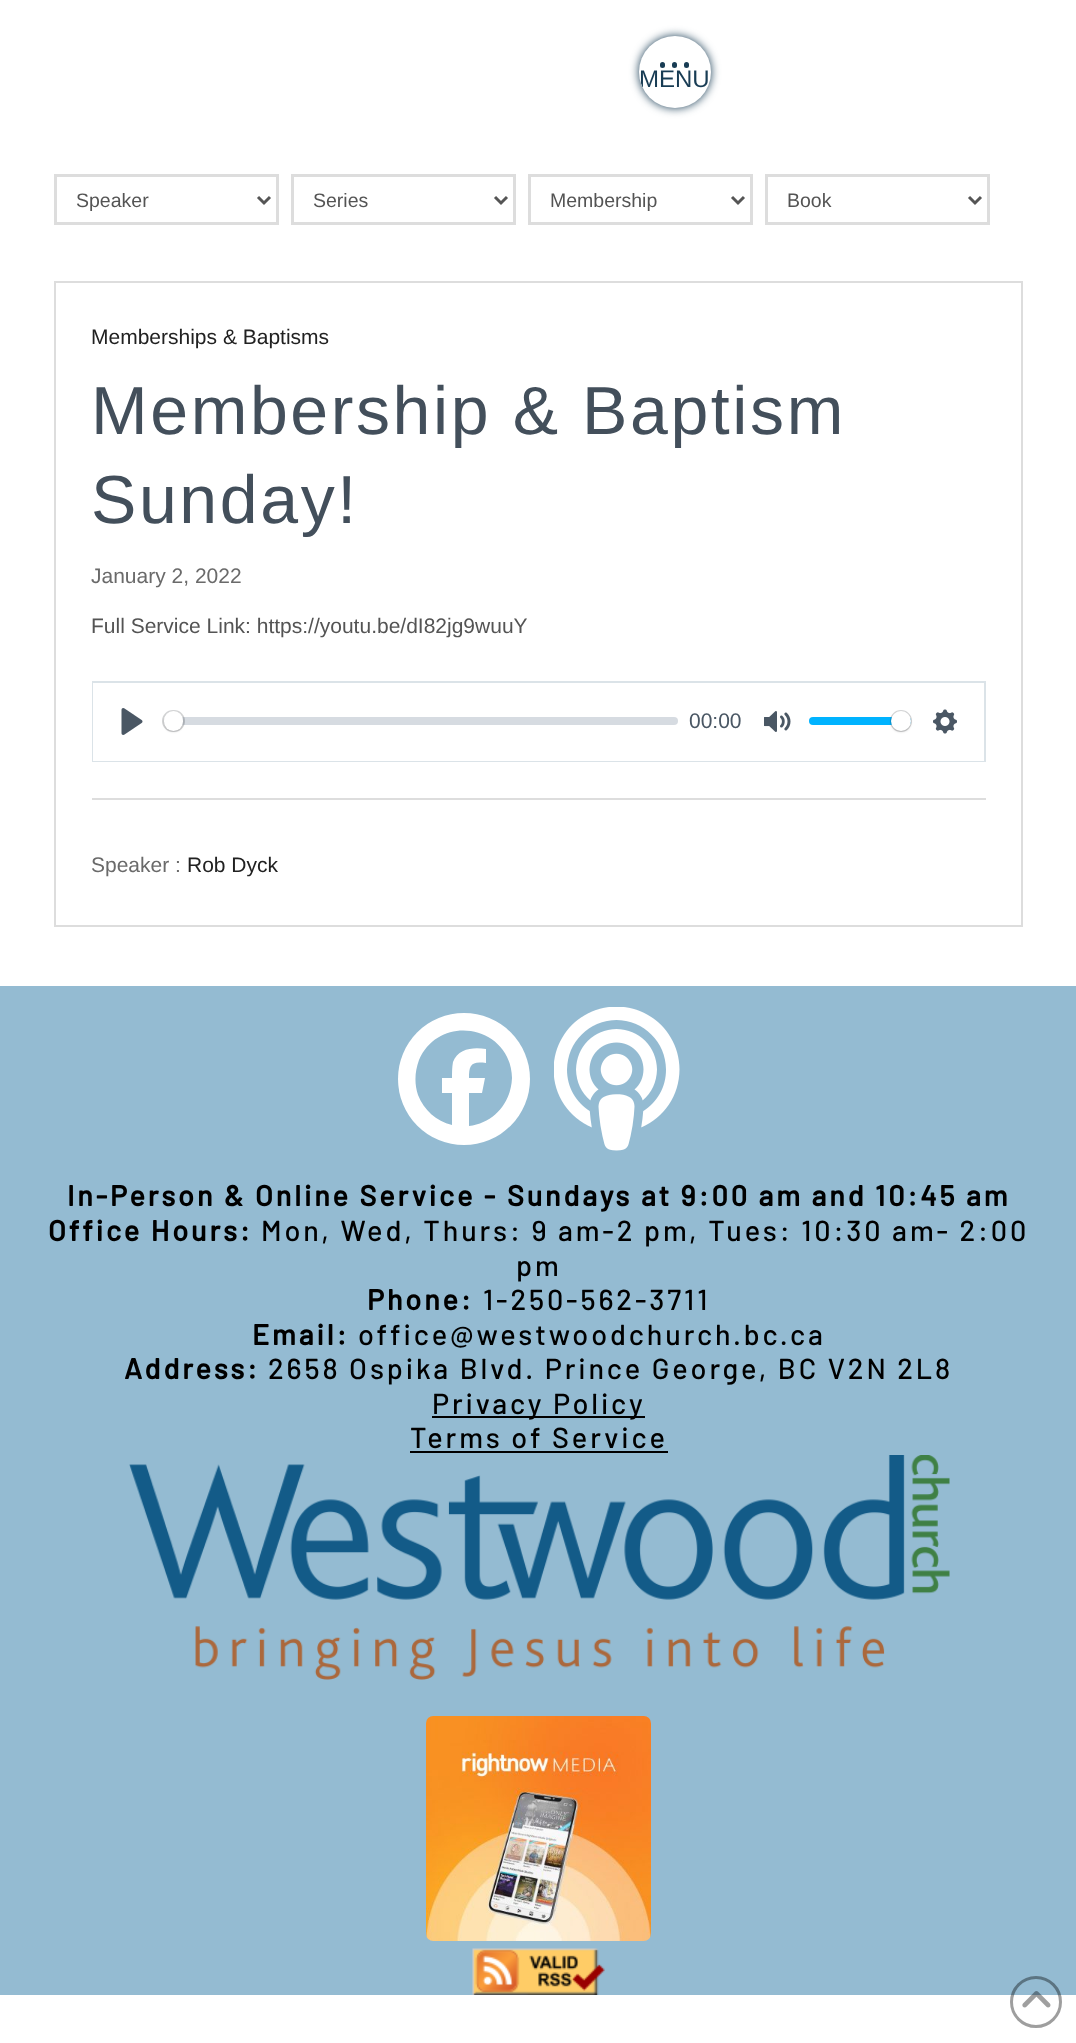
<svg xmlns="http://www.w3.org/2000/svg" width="1076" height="2043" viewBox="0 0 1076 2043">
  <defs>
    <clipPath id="clip1"><rect x="639" y="36" width="72" height="72" rx="36"/></clipPath>
  </defs>
  <rect width="100%" height="100%" fill="rgb(255,255,255)"/>
  <rect x="639" y="36" width="72" height="72" rx="36" fill="rgb(24,60,84)" filter="blur(5px)"/>
  <circle cx="675" cy="72" r="36" fill="rgb(255,255,255)"/>
  <rect x="660" y="62" width="5" height="6" rx="2.5" fill="rgb(24,60,84)"/>
  <rect x="672" y="62" width="5" height="6" rx="2.5" fill="rgb(24,60,84)"/>
  <rect x="684" y="62" width="5" height="6" rx="2.5" fill="rgb(24,60,84)"/>
  <g clip-path="url(#clip1)">
    <g clip-path="url(#clip1)">
      <text x="639" y="87" font-family="Liberation Sans" font-size="24" fill="rgb(24,60,84)">MENU</text>
    </g>
  </g>
  <rect x="55.5" y="175.5" width="222" height="48" fill="none" stroke="rgb(221,221,221)" stroke-width="3"/>
  <path d="M258 197L264 203L270 197" fill="none" stroke="rgb(85,85,85)" stroke-width="3"/>
  <text x="76" y="207" font-family="Liberation Sans" font-size="19.5" fill="rgb(84,84,84)">Speaker</text>
  <rect x="292.5" y="175.5" width="222" height="48" fill="none" stroke="rgb(221,221,221)" stroke-width="3"/>
  <path d="M495 197L501 203L507 197" fill="none" stroke="rgb(85,85,85)" stroke-width="3"/>
  <text x="313" y="207" font-family="Liberation Sans" font-size="19.5" fill="rgb(84,84,84)">Series</text>
  <rect x="529.5" y="175.5" width="222" height="48" fill="none" stroke="rgb(221,221,221)" stroke-width="3"/>
  <path d="M732 197L738 203L744 197" fill="none" stroke="rgb(85,85,85)" stroke-width="3"/>
  <text x="550" y="207" font-family="Liberation Sans" font-size="19.5" fill="rgb(84,84,84)">Membership</text>
  <rect x="766.5" y="175.5" width="222" height="48" fill="none" stroke="rgb(221,221,221)" stroke-width="3"/>
  <path d="M969 197L975 203L981 197" fill="none" stroke="rgb(85,85,85)" stroke-width="3"/>
  <text x="787" y="207" font-family="Liberation Sans" font-size="19.5" fill="rgb(84,84,84)">Book</text>
  <rect x="55" y="282" width="967" height="644" fill="none" stroke="rgb(221,221,221)" stroke-width="2"/>
  <text x="91" y="344" font-family="Liberation Sans" font-size="21" fill="rgb(33,33,33)">Memberships &amp; Baptisms</text>
  <g font-family="Liberation Sans" font-size="68" letter-spacing="2.6" fill="rgb(67,79,91)">
    <text>
      <tspan x="91" y="434">Membership &amp; Baptism</tspan>
      <tspan x="91" y="523">Sunday!</tspan>
    </text>
  </g>
  <text x="91" y="583" font-family="Liberation Sans" font-size="21" fill="rgb(106,106,106)">January 2, 2022</text>
  <text x="91" y="633" font-family="Liberation Sans" font-size="21" fill="rgb(84,84,84)">Full Service Link: https://youtu.be/dI82jg9wuuY</text>
  <rect x="93" y="682" width="892" height="79" fill="none" stroke="rgb(219,227,232)" stroke-width="2"/>
  <rect x="93" y="683" width="891" height="78" fill="rgb(255,255,255)"/>
  <image x="121" y="708" width="22" height="27" href="pic1.png"/>
  <rect x="164" y="717" width="514" height="8" rx="4" fill="rgba(193,201,209,0.66)"/>
  <rect x="163" y="711" width="21" height="20" rx="10" fill="none" stroke="rgba(35,41,47,0.2)" stroke-width="2"/>
  <rect x="164" y="713" width="19" height="19" rx="9.5" fill="rgba(0,0,0,0.15)" filter="blur(1px)"/>
  <rect x="164" y="711" width="19" height="20" rx="9.5" fill="rgb(255,255,255)"/>
  <text x="689" y="728" font-family="Liberation Sans" font-size="21" fill="rgb(74,87,100)">00:00</text>
  <image x="764" y="711" width="27" height="21" href="pic2.png"/>
  <rect x="809" y="717" width="102" height="8" rx="4" fill="rgb(0,179,255)"/>
  <circle cx="901" cy="721" r="10" fill="none" stroke="rgba(35,41,47,0.2)" stroke-width="2"/>
  <rect x="891" y="713" width="20" height="19" rx="9.5" fill="rgba(0,0,0,0.15)" filter="blur(1px)"/>
  <circle cx="901" cy="721" r="10" fill="rgb(255,255,255)"/>
  <image x="933" y="709" width="24" height="25" href="pic3.png"/>
  <rect x="92" y="798" width="894" height="2" fill="rgb(221,221,221)"/>
  <text x="91" y="872" font-family="Liberation Sans" font-size="21" fill="rgb(106,106,106)">Speaker :</text>
  <text x="187" y="872" font-family="Liberation Sans" font-size="21" fill="rgb(33,33,33)">Rob Dyck</text>
  <rect x="0" y="986" width="1076" height="1009" fill="rgb(148,187,210)"/>
  <circle cx="464" cy="1079" r="66" fill="rgb(255,255,255)"/>
  <path d="M512 1078C511 1026 440 1012 419 1060C415 1071 414 1083 418 1095C424 1110 436 1121 452 1125V1093H442V1078H452C452 1073 452 1067 453 1062C458 1048 474 1047 486 1049V1063C471 1061 469 1065 469 1078H485L482 1093H469V1126C494 1123 511 1103 512 1078Z" fill="rgb(148,187,210)"/>
  <image x="554" y="1007" width="126" height="144" href="pic4.png"/>
  <g font-family="Barlow" font-size="28.8" font-weight="bold" letter-spacing="2.88" fill="rgb(0,0,0)">
    <text x="67" y="1206">In-Person &amp; Online Service - Sundays at 9:00 am and 10:45 am</text>
    <text x="48" y="1241">Office Hours:</text>
  </g>
  <g font-family="Barlow" font-size="28.8" font-weight="500" letter-spacing="2.88" fill="rgb(0,0,0)">
    <text x="261" y="1241">Mon, Wed, Thurs: 9 am-2 pm, Tues: 10:30 am- 2:00</text>
    <text x="516" y="1276">pm</text>
  </g>
  <text x="367" y="1310" font-family="Barlow" font-size="28.8" font-weight="bold" letter-spacing="2.88" fill="rgb(0,0,0)">Phone:</text>
  <text x="483" y="1310" font-family="Barlow" font-size="28.8" font-weight="500" letter-spacing="2.88" fill="rgb(0,0,0)">1-250-562-3711</text>
  <text x="252" y="1345" font-family="Barlow" font-size="28.8" font-weight="bold" letter-spacing="2.88" fill="rgb(0,0,0)">Email:</text>
  <text x="358" y="1345" font-family="Barlow" font-size="28.8" font-weight="500" letter-spacing="2.88" fill="rgb(0,0,0)">office@westwoodchurch.bc.ca</text>
  <text x="124" y="1379" font-family="Barlow" font-size="28.8" font-weight="bold" letter-spacing="2.88" fill="rgb(0,0,0)">Address:</text>
  <text x="268" y="1379" font-family="Barlow" font-size="28.8" font-weight="500" letter-spacing="2.88" fill="rgb(0,0,0)">2658 Ospika Blvd. Prince George, BC V2N 2L8</text>
  <rect x="432" y="1416" width="213" height="2" fill="rgb(0,0,0)"/>
  <g font-family="Barlow" font-size="28.8" font-weight="500" letter-spacing="2.88" fill="rgb(0,0,0)">
    <text x="432" y="1414">Privacy Policy</text>
    <text x="410" y="1448">Terms of Service</text>
  </g>
  <rect x="410" y="1451" width="258" height="2" fill="rgb(0,0,0)"/>
  <image x="129" y="1455" width="821" height="225" href="pic5.png"/>
  <image x="426" y="1716" width="225" height="225" href="pic6.png"/>
  <image x="472" y="1948" width="133" height="47" href="pic7.png"/>
  <circle cx="1036" cy="2002" r="24.5" fill="none" stroke="rgba(0,0,0,0.38)" stroke-width="3"/>
  <image x="1022" y="1991" width="29" height="17" href="pic8.png"/>
</svg>
